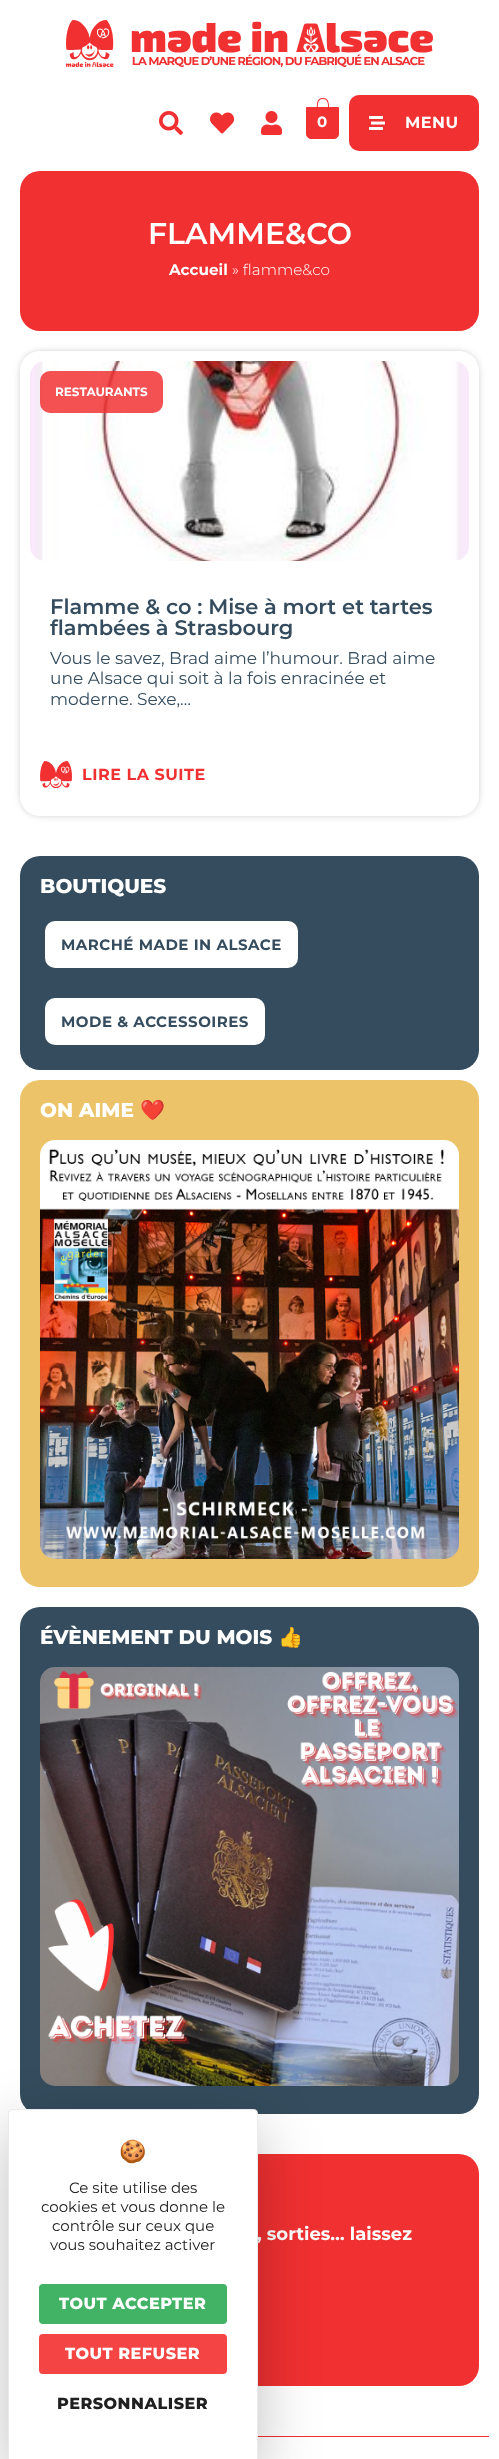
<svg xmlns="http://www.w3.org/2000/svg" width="499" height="2459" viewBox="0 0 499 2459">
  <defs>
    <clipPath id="clip1"><path d="M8 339H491V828H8ZM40 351H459C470 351 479 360 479 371V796C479 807 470 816 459 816H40C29 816 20 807 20 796V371C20 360 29 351 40 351Z" clip-rule="evenodd"/></clipPath>
  </defs>
  <rect width="100%" height="100%" fill="rgb(255,255,255)"/>
  <image x="66" y="20" width="367" height="47" href="pic1.png"/>
  <image x="159" y="111" width="24" height="24" href="pic2.png"/>
  <image x="210" y="112" width="24" height="22" href="pic3.png"/>
  <image x="261" y="111" width="21" height="24" href="pic4.png"/>
  <path d="M306.5 107.5H338.5V134C338.5 136.5 336.5 138.5 334 138.5H311C308.5 138.5 306.5 136.5 306.5 134Z" fill="rgb(241,48,49)" stroke="rgb(241,48,49)"/>
  <path d="M323 98C330 98 329 106 329 111H317C317 106 315.5 98 323 98ZM323 99C329 99 328 107 328 111H318C318 107 316.5 99 323 99Z" fill="rgb(241,48,49)" fill-rule="evenodd"/>
  <text x="317" y="127" font-family="Montserrat" font-size="15" font-weight="bold" fill="rgb(255,255,255)">0</text>
  <rect x="349" y="95" width="130" height="56" rx="10" fill="rgb(241,48,49)"/>
  <image x="369" y="116" width="16" height="14" href="pic5.png"/>
  <text x="405" y="128" font-family="Montserrat" font-size="16" font-weight="bold" letter-spacing="0.5" fill="rgb(255,255,255)">MENU</text>
  <rect x="20" y="171" width="459" height="160" rx="20" fill="rgb(241,48,49)"/>
  <text x="148" y="244" font-family="Montserrat" font-size="30" font-weight="600" fill="rgb(255,255,255)">FLAMME&amp;CO</text>
  <text x="169" y="275" font-family="Montserrat" font-size="15.25" font-weight="bold" fill="rgb(255,255,255)">Accueil</text>
  <text x="232" y="275" font-family="Montserrat" font-size="15.25" font-weight="300" fill="rgb(255,255,255)">» flamme&amp;co</text>
  <g clip-path="url(#clip1)">
    <rect x="24" y="355" width="451" height="457" rx="16" fill="rgba(0,0,0,0.5)" filter="blur(5px)"/>
  </g>
  <image x="30" y="361" width="439" height="200" href="pic6.png"/>
  <rect x="40" y="371" width="123" height="42" rx="10" fill="rgba(241,48,49,0.84)"/>
  <text x="55" y="396" font-family="Montserrat" font-size="12" font-weight="bold" fill="rgb(255,255,255)">RESTAURANTS</text>
  <g font-family="Montserrat" font-size="21" font-weight="600" fill="rgb(52,76,93)">
    <text>
      <tspan x="50" y="614">Flamme &amp; co : Mise à mort et tartes</tspan>
      <tspan x="50" y="635">flambées à Strasbourg</tspan>
    </text>
  </g>
  <g font-family="Montserrat" font-size="17" fill="rgb(52,76,93)">
    <text>
      <tspan x="50" y="664">Vous le savez, Brad aime l’humour. Brad aime</tspan>
      <tspan x="50" y="684">une Alsace qui soit à la fois enracinée et</tspan>
      <tspan x="50" y="705">moderne. Sexe,…</tspan>
    </text>
  </g>
  <image x="40" y="761" width="32" height="27" href="pic7.png"/>
  <text x="82" y="780" font-family="Montserrat" font-size="16" font-weight="bold" letter-spacing="0.5" fill="rgb(241,48,49)">LIRE LA SUITE</text>
  <rect x="20" y="856" width="459" height="214" rx="20" fill="rgb(52,76,93)"/>
  <text x="40" y="893" font-family="Montserrat" font-size="20" font-weight="800" fill="rgb(255,255,255)">BOUTIQUES</text>
  <rect x="46" y="922" width="251" height="45" rx="9" fill="rgb(255,255,255)" stroke="rgb(255,255,255)" stroke-width="2"/>
  <text x="61" y="950" font-family="Montserrat" font-size="15" font-weight="bold" letter-spacing="0.5" fill="rgb(52,76,93)">MARCHÉ MADE IN ALSACE</text>
  <rect x="46" y="999" width="218" height="45" rx="9" fill="rgb(255,255,255)" stroke="rgb(255,255,255)" stroke-width="2"/>
  <text x="61" y="1027" font-family="Montserrat" font-size="15" font-weight="bold" letter-spacing="0.5" fill="rgb(52,76,93)">MODE &amp; ACCESSOIRES</text>
  <rect x="20" y="1080" width="459" height="507" rx="20" fill="rgb(236,195,104)"/>
  <text x="40" y="1117" font-family="Montserrat" font-size="20" font-weight="800" fill="rgb(255,255,255)">ON AIME</text>
  <text x="140" y="1117" font-family="Noto Color Emoji" font-size="20" font-weight="bold" fill="rgb(255,255,255)">❤️</text>
  <image x="40" y="1140" width="419" height="419" href="pic8.png"/>
  <rect x="20" y="1607" width="459" height="507" rx="20" fill="rgb(52,76,93)"/>
  <text x="40" y="1644" font-family="Montserrat" font-size="20" font-weight="800" fill="rgb(255,255,255)">ÉVÈNEMENT DU MOIS</text>
  <text x="278" y="1644" font-family="Noto Color Emoji" font-size="20" font-weight="bold" fill="rgb(255,255,255)">👍</text>
  <image x="40" y="1667" width="419" height="419" href="pic9.png"/>
  <rect x="20" y="2154" width="459" height="232" rx="20" fill="rgb(241,48,49)"/>
  <text x="257" y="2240" font-family="Montserrat" font-size="18" font-weight="bold" fill="rgb(255,255,255)">, sorties… laissez</text>
  <rect x="258" y="2436" width="231" height="1" fill="rgb(241,48,49)"/>
  <rect x="8" y="2129" width="250" height="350" rx="5" fill="rgba(0,0,0,0.25)" filter="blur(30px)"/>
  <path d="M13 2109H253C256 2109 258 2111 258 2114V2459H8V2114C8 2111 10 2109 13 2109Z" fill="rgb(255,255,255)"/>
  <path d="M13 2109H253C256 2109 258 2111 258 2114V2459H8V2114C8 2111 10 2109 13 2109ZM13 2110H253C255 2110 257 2112 257 2114V2459H9V2114C9 2112 11 2110 13 2110Z" fill="rgba(0,0,0,0.08)" fill-rule="evenodd"/>
  <text x="119" y="2159" font-family="Noto Color Emoji" font-size="22" fill="rgb(32,32,32)">🍪</text>
  <g font-family="Montserrat" font-size="15" fill="rgb(32,32,32)">
    <text x="69" y="2193">Ce site utilise des</text>
    <text x="41" y="2212">cookies et vous donne le</text>
    <text x="52" y="2231">contrôle sur ceux que</text>
    <text x="50" y="2250">vous souhaitez activer</text>
  </g>
  <rect x="39" y="2284" width="188" height="40" rx="4" fill="rgb(66,179,100)"/>
  <text x="59" y="2309" font-family="Montserrat" font-size="16" font-weight="800" letter-spacing="0.5" fill="rgb(255,255,255)">TOUT ACCEPTER</text>
  <rect x="39" y="2334" width="188" height="40" rx="4" fill="rgb(245,68,68)"/>
  <text x="65" y="2359" font-family="Montserrat" font-size="16" font-weight="800" letter-spacing="0.5" fill="rgb(255,255,255)">TOUT REFUSER</text>
  <text x="57" y="2409" font-family="Montserrat" font-size="16" font-weight="800" letter-spacing="0.5" fill="rgb(32,32,32)">PERSONNALISER</text>
</svg>
